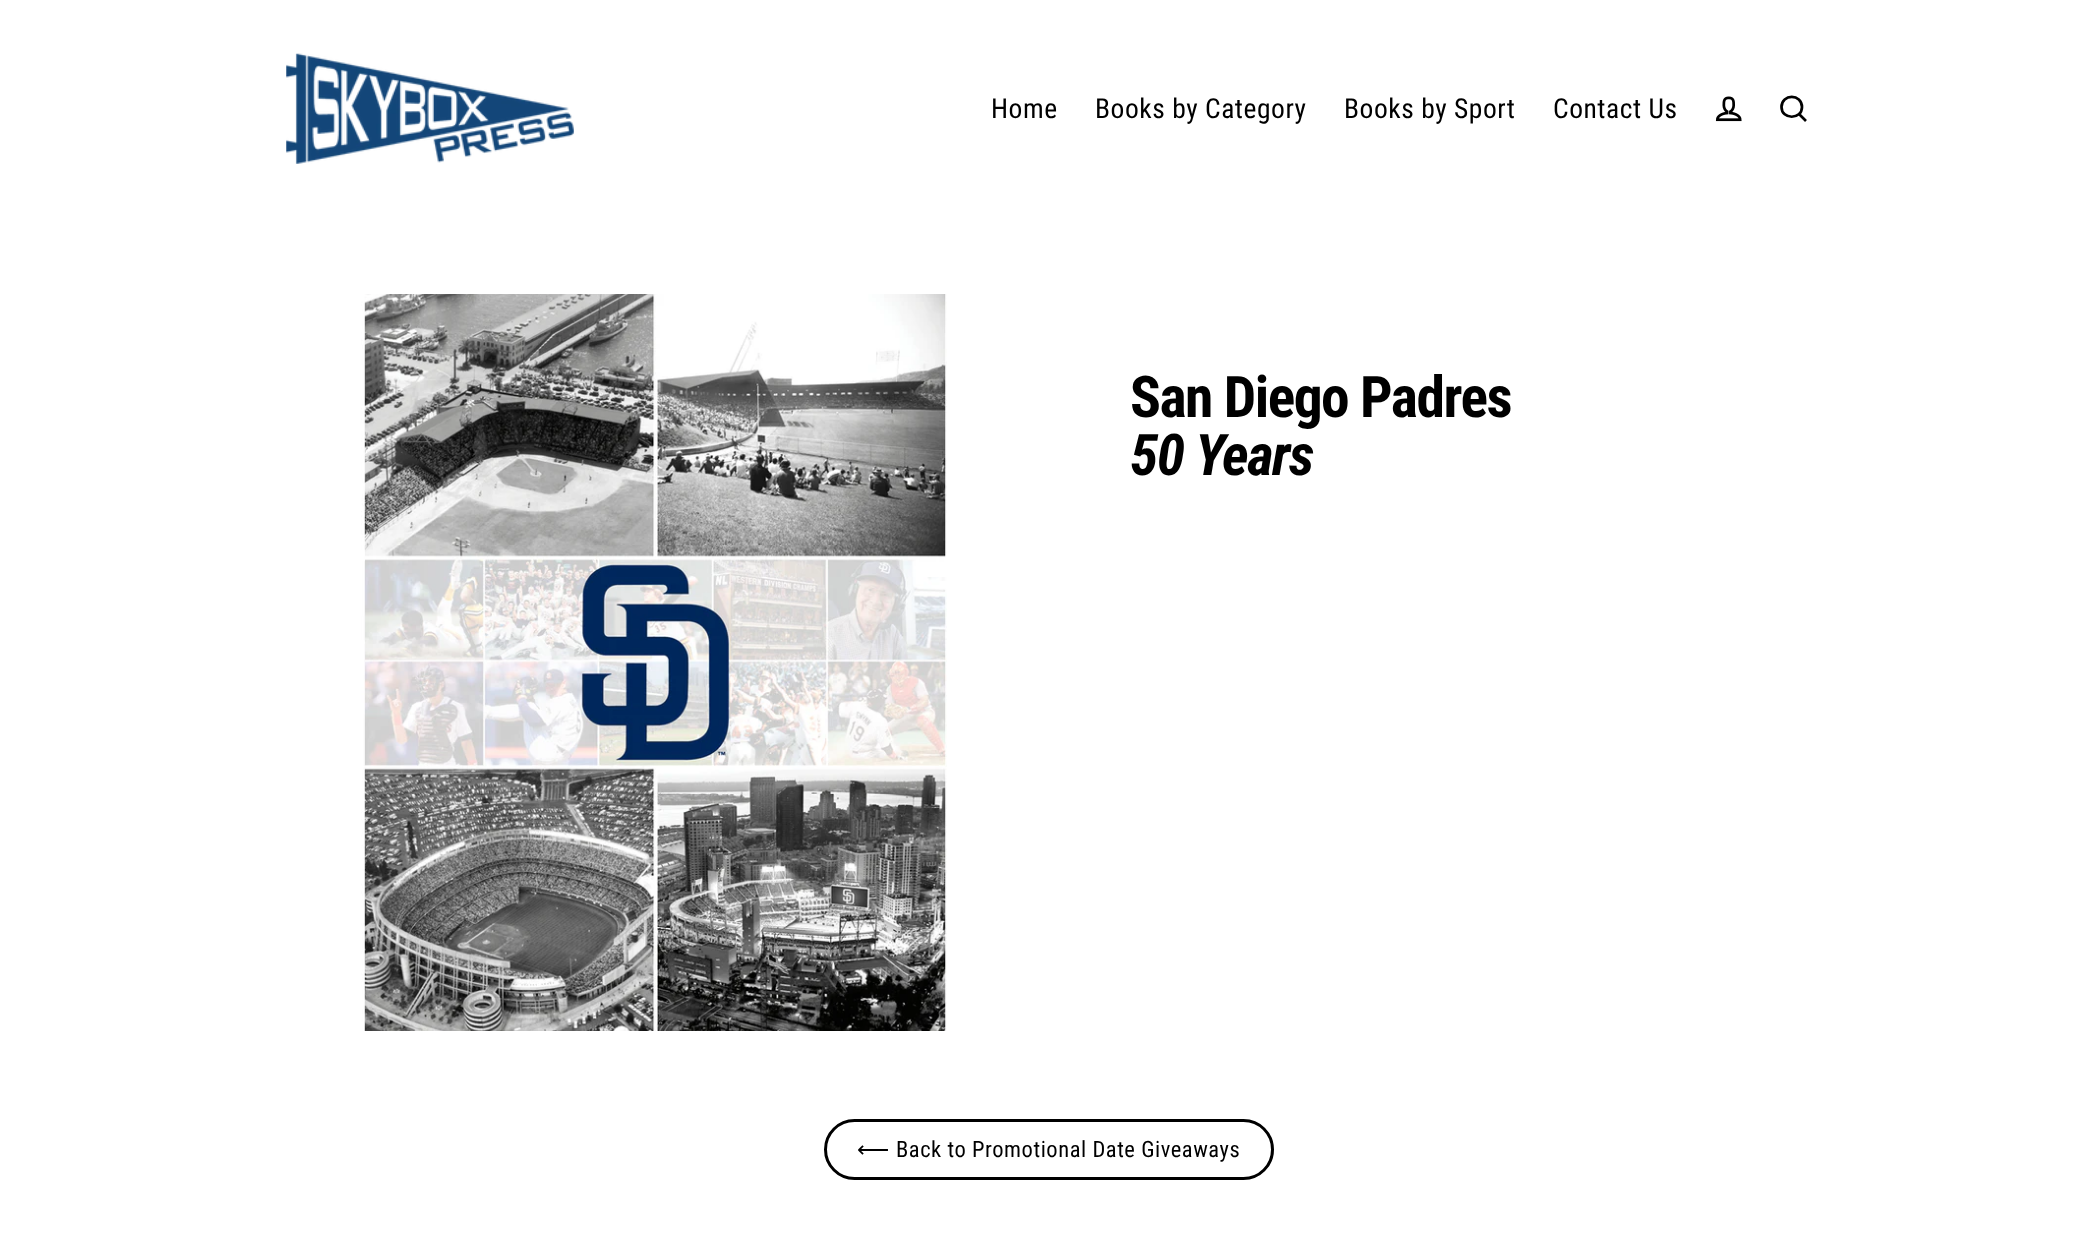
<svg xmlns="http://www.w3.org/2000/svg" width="2097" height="1249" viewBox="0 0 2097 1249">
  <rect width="100%" height="100%" fill="rgb(255,255,255)"/>
  <image x="286" y="53" width="288" height="111" href="pic1.png"/>
  <g font-family="Roboto Condensed" font-size="27.5" letter-spacing="0.55" fill="rgb(0,0,0)">
    <text x="991" y="118">Home</text>
    <text x="1095" y="118">Books by Category</text>
    <text x="1344" y="118">Books by Sport</text>
    <text x="1553" y="118">Contact Us</text>
  </g>
  <image x="1715" y="96" width="27" height="26" href="pic2.png"/>
  <path d="M1802 107C1802 120 1781.5 120 1781.5 107C1781.5 93.5 1802 93.5 1802 107ZM1806 121L1799 114" fill="none" stroke="rgb(0,0,0)" stroke-width="2.7"/>
  <image x="361" y="294" width="586" height="737" href="pic3.png"/>
  <text x="1130" y="417" font-family="Roboto Condensed" font-size="57.5" font-weight="bold" letter-spacing="-1.5" fill="rgb(0,0,0)">San Diego Padres</text>
  <text x="1130" y="475" font-family="Roboto Condensed" font-size="57.5" font-weight="bold" font-style="italic" letter-spacing="-1.5" fill="rgb(0,0,0)">50 Years</text>
  <rect x="825.5" y="1120.5" width="447" height="58" rx="29" fill="none" stroke="rgb(0,0,0)" stroke-width="3"/>
  <text x="857" y="1157" font-family="DejaVu Sans" font-size="22.5" letter-spacing="0.55" fill="rgb(0,0,0)">⟵</text>
  <text x="896" y="1157" font-family="Roboto Condensed" font-size="22.5" letter-spacing="0.55" fill="rgb(0,0,0)">Back to Promotional Date Giveaways</text>
</svg>
